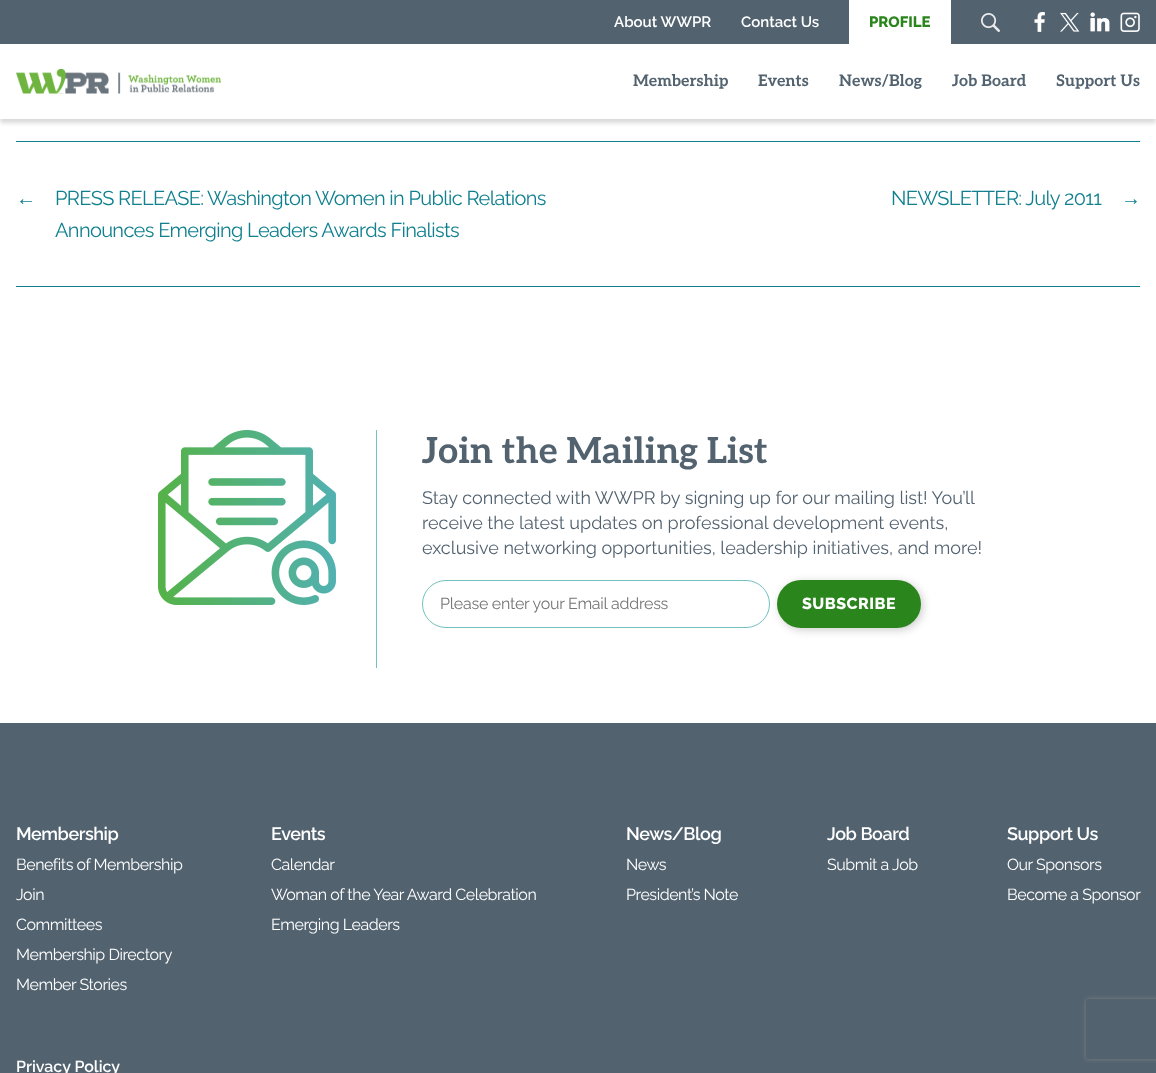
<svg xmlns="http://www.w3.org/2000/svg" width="1156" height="1073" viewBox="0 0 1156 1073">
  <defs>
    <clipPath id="clip1"><path d="M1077 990H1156V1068H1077ZM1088 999H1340C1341 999 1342 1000 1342 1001V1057C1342 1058 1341 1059 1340 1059H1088C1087 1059 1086 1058 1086 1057V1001C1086 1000 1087 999 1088 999Z" clip-rule="evenodd"/></clipPath>
  </defs>
  <rect width="100%" height="100%" fill="rgb(255,255,255)"/>
  <rect x="0" y="4" width="1156" height="119" fill="rgba(0,0,0,0.15)" filter="blur(2px)"/>
  <rect x="0" y="44" width="1156" height="75" fill="rgb(255,255,255)"/>
  <rect x="0" y="0" width="1156" height="44" fill="rgb(82,98,111)"/>
  <g font-family="Raleway" font-size="15" font-weight="600" fill="rgb(255,255,255)">
    <text x="614" y="27">About WWPR</text>
    <text x="741" y="27">Contact Us</text>
  </g>
  <rect x="849" y="0" width="102" height="44" fill="rgb(255,255,255)"/>
  <text x="869" y="27" font-family="Raleway" font-size="15" font-weight="800" fill="rgb(43,133,29)">PROFILE</text>
  <image x="981" y="13" width="19" height="19" href="pic1.png"/>
  <image x="1034" y="12" width="11" height="20" href="pic2.png"/>
  <image x="1060" y="12" width="20" height="20" href="pic3.png"/>
  <image x="1090" y="12" width="20" height="20" href="pic4.png"/>
  <image x="1120" y="12" width="20" height="20" href="pic5.png"/>
  <image x="16" y="69" width="205" height="25" href="pic6.png"/>
  <g font-family="Aleo" font-size="16" font-weight="bold" fill="rgb(82,98,111)">
    <text x="633" y="86">Membership</text>
    <text x="758" y="86">Events</text>
    <text x="839" y="86">News/Blog</text>
    <text x="952" y="86">Job Board</text>
    <text x="1056" y="86">Support Us</text>
  </g>
  <rect x="16" y="141" width="1124" height="1" fill="rgb(16,128,143)"/>
  <text x="16" y="205" font-family="Liberation Sans" font-size="20" letter-spacing="-0.65" fill="rgb(16,128,143)">←</text>
  <g font-family="Raleway" font-size="20" letter-spacing="-0.65" fill="rgb(16,128,143)">
    <text>
      <tspan x="55" y="205">PRESS RELEASE: Washington Women in Public Relations</tspan>
      <tspan x="55" y="237">Announces Emerging Leaders Awards Finalists</tspan>
    </text>
    <text x="891" y="205">NEWSLETTER: July 2011</text>
  </g>
  <text x="1121" y="205" font-family="Liberation Sans" font-size="20" letter-spacing="-0.65" fill="rgb(16,128,143)">→</text>
  <rect x="16" y="286" width="1124" height="1" fill="rgb(16,128,143)"/>
  <image x="158" y="430" width="178" height="175" href="pic7.png"/>
  <rect x="376" y="430" width="1" height="238" fill="rgb(116,193,193)"/>
  <text x="422" y="463" font-family="Aleo" font-size="36" font-weight="bold" fill="rgb(82,98,111)">Join the Mailing List</text>
  <g font-family="Raleway" font-size="18" fill="rgb(82,98,111)">
    <text>
      <tspan x="422" y="504">Stay connected with WWPR by signing up for our mailing list! You’ll</tspan>
      <tspan x="422" y="529">receive the latest updates on professional development events,</tspan>
      <tspan x="422" y="554">exclusive networking opportunities, leadership initiatives, and more!</tspan>
    </text>
  </g>
  <rect x="422.5" y="580.5" width="347" height="47" rx="23.5" fill="none" stroke="rgb(116,193,193)"/>
  <text x="440" y="609" font-family="Raleway" font-size="16" letter-spacing="-0.25" fill="rgb(117,117,117)">Please enter your Email address</text>
  <rect x="779" y="582" width="144" height="48" rx="24" fill="rgba(0,0,0,0.2)" filter="blur(4px)"/>
  <rect x="777" y="580" width="144" height="48" rx="24" fill="rgb(43,133,29)"/>
  <text x="802" y="609" font-family="Raleway" font-size="16" font-weight="800" letter-spacing="0.5" fill="rgb(255,255,255)">SUBSCRIBE</text>
  <rect x="0" y="723" width="1156" height="350" fill="rgb(82,98,111)"/>
  <text x="16" y="840" font-family="Raleway" font-size="18" font-weight="600" letter-spacing="-0.45" fill="rgb(255,255,255)">Membership</text>
  <g font-family="Raleway" font-size="16" letter-spacing="-0.45" fill="rgb(255,255,255)">
    <text>
      <tspan x="16" y="870">Benefits of Membership</tspan>
      <tspan x="16" y="900">Join</tspan>
      <tspan x="16" y="930">Committees</tspan>
      <tspan x="16" y="960">Membership Directory</tspan>
      <tspan x="16" y="990">Member Stories</tspan>
    </text>
  </g>
  <text x="271" y="840" font-family="Raleway" font-size="18" font-weight="600" letter-spacing="-0.45" fill="rgb(255,255,255)">Events</text>
  <g font-family="Raleway" font-size="16" letter-spacing="-0.45" fill="rgb(255,255,255)">
    <text>
      <tspan x="271" y="870">Calendar</tspan>
      <tspan x="271" y="900">Woman of the Year Award Celebration</tspan>
      <tspan x="271" y="930">Emerging Leaders</tspan>
    </text>
  </g>
  <text x="626" y="840" font-family="Raleway" font-size="18" font-weight="600" letter-spacing="-0.45" fill="rgb(255,255,255)">News/Blog</text>
  <g font-family="Raleway" font-size="16" letter-spacing="-0.45" fill="rgb(255,255,255)">
    <text>
      <tspan x="626" y="870">News</tspan>
      <tspan x="626" y="900">President’s Note</tspan>
    </text>
  </g>
  <text x="827" y="840" font-family="Raleway" font-size="18" font-weight="600" letter-spacing="-0.45" fill="rgb(255,255,255)">Job Board</text>
  <text x="827" y="870" font-family="Raleway" font-size="16" letter-spacing="-0.45" fill="rgb(255,255,255)">Submit a Job</text>
  <text x="1007" y="840" font-family="Raleway" font-size="18" font-weight="600" letter-spacing="-0.45" fill="rgb(255,255,255)">Support Us</text>
  <g font-family="Raleway" font-size="16" letter-spacing="-0.45" fill="rgb(255,255,255)">
    <text>
      <tspan x="1007" y="870">Our Sponsors</tspan>
      <tspan x="1007" y="900">Become a Sponsor</tspan>
    </text>
  </g>
  <text x="16" y="1072" font-family="Raleway" font-size="16" font-weight="600" fill="rgb(255,255,255)">Privacy Policy</text>
  <g clip-path="url(#clip1)">
    <rect x="1086" y="999" width="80" height="60" rx="2" fill="rgb(128,128,128)" filter="blur(2.5px)"/>
  </g>
</svg>
